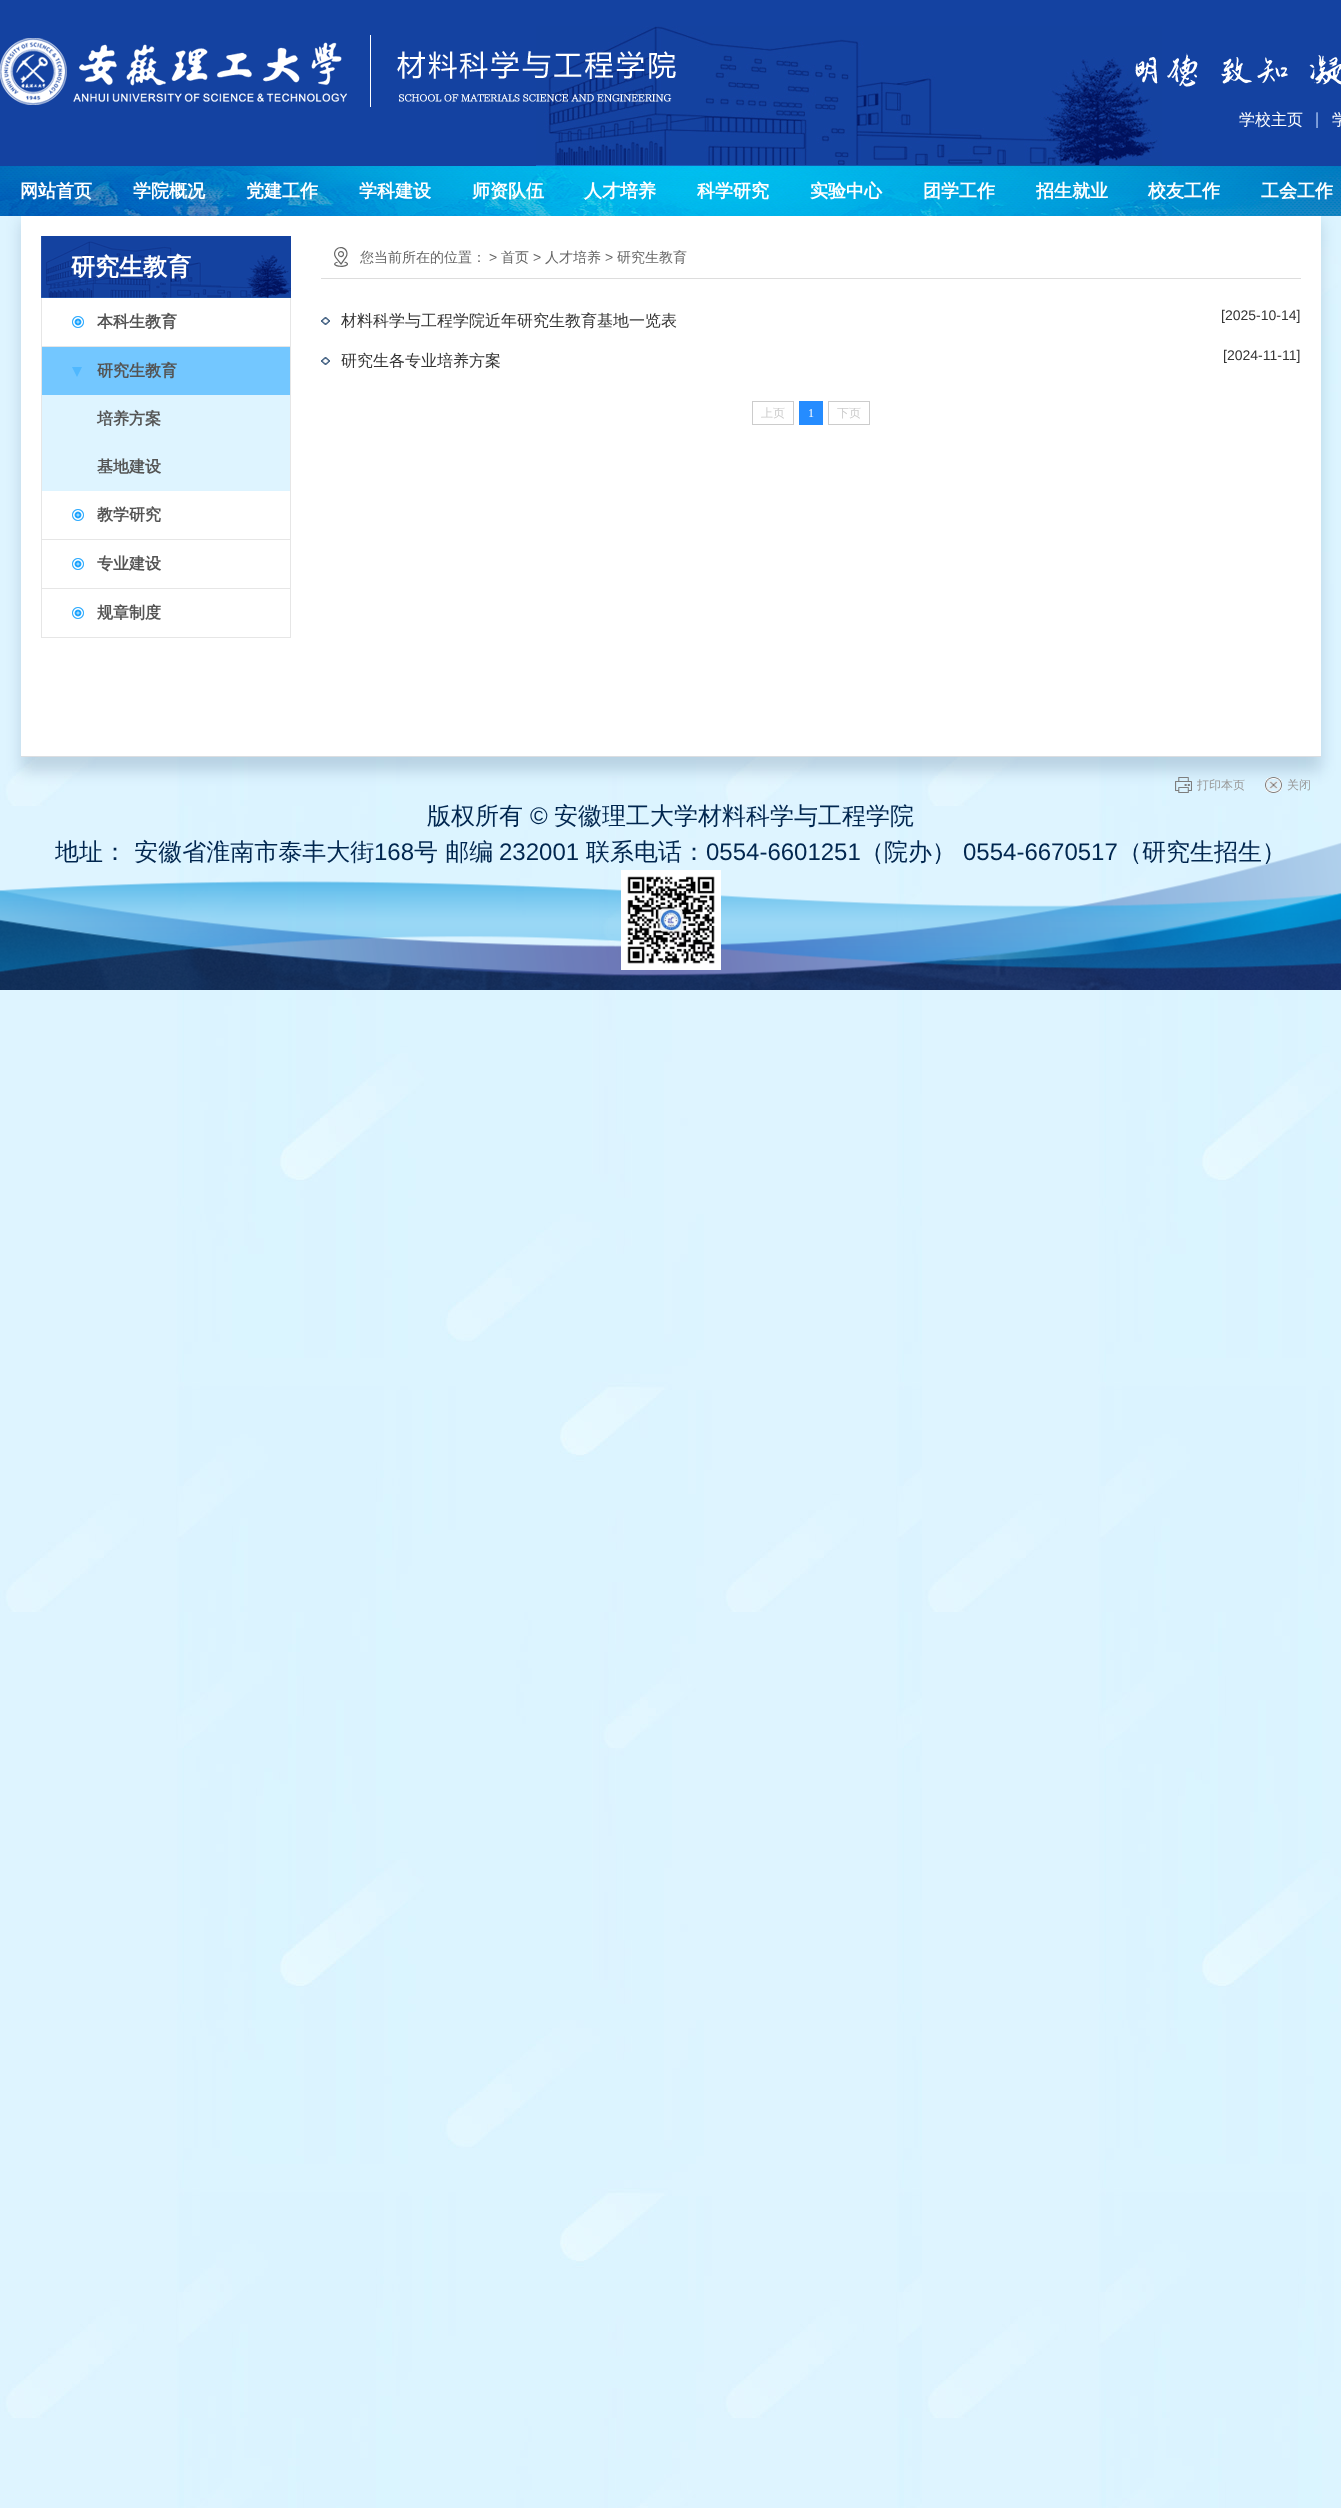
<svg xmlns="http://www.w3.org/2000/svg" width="1341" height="2508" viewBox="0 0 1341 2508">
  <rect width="100%" height="100%" fill="rgb(255,255,255)"/>
  <image x="0" y="216" width="1341" height="2292" href="pic1.png"/>
  <rect x="0" y="0" width="1341" height="166" fill="rgb(20,66,161)"/>
  <image x="536" y="26" width="626" height="140" href="pic2.png"/>
  <image x="0" y="35" width="676" height="72" href="pic3.png"/>
  <image x="1135" y="53" width="206" height="34" href="pic4.png"/>
  <text x="1239" y="125" font-family="WenQuanYi Zen Hei" font-size="16" font-weight="500" fill="rgb(255,255,255)">学校主页</text>
  <image x="1316" y="112" width="2" height="16" href="pic5.png"/>
  <text x="1332" y="125" font-family="WenQuanYi Zen Hei" font-size="16" font-weight="500" fill="rgb(255,255,255)">学</text>
  <rect x="21" y="221" width="1300" height="550" fill="rgba(0,38,79,0.16)" filter="blur(7.5px)"/>
  <image x="0" y="166" width="1341" height="50" href="pic6.png"/>
  <g font-family="WenQuanYi Zen Hei" font-size="18" font-weight="bold" fill="rgb(255,255,255)">
    <text x="20" y="197">网站首页</text>
    <text x="133" y="197">学院概况</text>
    <text x="246" y="197">党建工作</text>
    <text x="359" y="197">学科建设</text>
    <text x="472" y="197">师资队伍</text>
    <text x="584" y="197">人才培养</text>
    <text x="697" y="197">科学研究</text>
    <text x="810" y="197">实验中心</text>
    <text x="923" y="197">团学工作</text>
    <text x="1036" y="197">招生就业</text>
    <text x="1148" y="197">校友工作</text>
    <text x="1261" y="197">工会工作</text>
  </g>
  <rect x="21" y="216" width="1300" height="540" fill="rgb(255,255,255)"/>
  <image x="41" y="236" width="250" height="62" href="pic7.png"/>
  <text x="71" y="275" font-family="WenQuanYi Zen Hei" font-size="24" font-weight="bold" fill="rgb(255,255,255)">研究生教育</text>
  <image x="72" y="316" width="12" height="12" href="pic8.png"/>
  <rect x="290" y="298" width="1" height="97" fill="rgb(230,230,230)"/>
  <rect x="41" y="346" width="250" height="1" fill="rgb(230,230,230)"/>
  <rect x="41" y="298" width="1" height="97" fill="rgb(230,230,230)"/>
  <text x="97" y="327" font-family="WenQuanYi Zen Hei" font-size="16" font-weight="bold" fill="rgb(84,84,84)">本科生教育</text>
  <rect x="42" y="347" width="248" height="48" fill="rgb(115,199,255)"/>
  <path d="M72 367H82L77 377Z" fill="rgb(80,184,254)"/>
  <text x="97" y="376" font-family="WenQuanYi Zen Hei" font-size="16" font-weight="bold" fill="rgb(84,84,84)">研究生教育</text>
  <rect x="42" y="395" width="248" height="96" fill="rgb(222,244,255)"/>
  <rect x="290" y="395" width="1" height="243" fill="rgb(230,230,230)"/>
  <rect x="41" y="395" width="1" height="96" fill="rgb(230,230,230)"/>
  <g font-family="WenQuanYi Zen Hei" font-size="16" font-weight="bold" fill="rgb(84,84,84)">
    <text x="97" y="424">培养方案</text>
    <text x="97" y="472">基地建设</text>
  </g>
  <image x="72" y="509" width="12" height="12" href="pic8.png"/>
  <rect x="41" y="539" width="250" height="1" fill="rgb(230,230,230)"/>
  <rect x="41" y="491" width="1" height="49" fill="rgb(230,230,230)"/>
  <text x="97" y="520" font-family="WenQuanYi Zen Hei" font-size="16" font-weight="bold" fill="rgb(84,84,84)">教学研究</text>
  <image x="72" y="558" width="12" height="12" href="pic8.png"/>
  <rect x="41" y="588" width="250" height="1" fill="rgb(230,230,230)"/>
  <rect x="41" y="540" width="1" height="49" fill="rgb(230,230,230)"/>
  <text x="97" y="569" font-family="WenQuanYi Zen Hei" font-size="16" font-weight="bold" fill="rgb(84,84,84)">专业建设</text>
  <image x="72" y="607" width="12" height="12" href="pic8.png"/>
  <rect x="41" y="637" width="250" height="1" fill="rgb(230,230,230)"/>
  <rect x="41" y="589" width="1" height="49" fill="rgb(230,230,230)"/>
  <text x="97" y="618" font-family="WenQuanYi Zen Hei" font-size="16" font-weight="bold" fill="rgb(84,84,84)">规章制度</text>
  <image x="334" y="247" width="14" height="20" href="pic9.png"/>
  <text x="360" y="262" font-family="WenQuanYi Zen Hei" font-size="14" font-weight="500" fill="rgb(102,102,102)">您当前所在的位置：</text>
  <text x="489" y="262" font-family="Liberation Sans" font-size="14" fill="rgb(102,102,102)">&gt;</text>
  <text x="501" y="262" font-family="WenQuanYi Zen Hei" font-size="14" font-weight="500" fill="rgb(102,102,102)">首页</text>
  <text x="533" y="262" font-family="Liberation Sans" font-size="14" fill="rgb(102,102,102)">&gt;</text>
  <text x="545" y="262" font-family="WenQuanYi Zen Hei" font-size="14" font-weight="500" fill="rgb(102,102,102)">人才培养</text>
  <text x="605" y="262" font-family="Liberation Sans" font-size="14" fill="rgb(102,102,102)">&gt;</text>
  <text x="617" y="262" font-family="WenQuanYi Zen Hei" font-size="14" font-weight="500" fill="rgb(102,102,102)">研究生教育</text>
  <rect x="321" y="278" width="980" height="1" fill="rgb(221,221,221)"/>
  <image x="321" y="317" width="9" height="8" href="pic10.png"/>
  <text x="341" y="326" font-family="WenQuanYi Zen Hei" font-size="16" font-weight="500" fill="rgb(51,51,51)">材料科学与工程学院近年研究生教育基地一览表</text>
  <text x="1221" y="320" font-family="Liberation Sans" font-size="14" fill="rgb(51,51,51)">[2025-10-14]</text>
  <image x="321" y="357" width="9" height="8" href="pic10.png"/>
  <text x="341" y="366" font-family="WenQuanYi Zen Hei" font-size="16" font-weight="500" fill="rgb(51,51,51)">研究生各专业培养方案</text>
  <text x="1223" y="360" font-family="Liberation Sans" font-size="14" fill="rgb(51,51,51)">[2024-11-11]</text>
  <rect x="752.5" y="401.5" width="41" height="23" fill="none" stroke="rgb(204,204,204)"/>
  <text x="761" y="417" font-family="WenQuanYi Zen Hei" font-size="12" font-weight="500" fill="rgb(204,204,204)">上页</text>
  <rect x="799" y="401" width="24" height="24" fill="rgb(37,140,255)"/>
  <text x="808" y="417" font-family="Liberation Serif" font-size="12" fill="rgb(255,255,255)">1</text>
  <rect x="828.5" y="401.5" width="41" height="23" fill="none" stroke="rgb(204,204,204)"/>
  <text x="837" y="417" font-family="WenQuanYi Zen Hei" font-size="12" font-weight="500" fill="rgb(204,204,204)">下页</text>
  <image x="0" y="842" width="1341" height="148" href="pic11.png"/>
  <rect x="21" y="756" width="1300" height="1" fill="rgb(219,222,225)"/>
  <image x="1175" y="777" width="17" height="16" href="pic12.png"/>
  <text x="1197" y="789" font-family="WenQuanYi Zen Hei" font-size="12" font-weight="500" fill="rgb(153,153,153)">打印本页</text>
  <image x="1265" y="777" width="17" height="16" href="pic13.png"/>
  <text x="1287" y="789" font-family="WenQuanYi Zen Hei" font-size="12" font-weight="500" fill="rgb(153,153,153)">关闭</text>
  <text x="427" y="824" font-family="WenQuanYi Zen Hei" font-size="24" font-weight="500" fill="rgb(0,38,79)">版权所有</text>
  <text x="530" y="824" font-family="Liberation Sans" font-size="24" fill="rgb(0,38,79)">©</text>
  <g font-family="WenQuanYi Zen Hei" font-size="24" font-weight="500" fill="rgb(0,38,79)">
    <text x="554" y="824">安徽理工大学材料科学与工程学院</text>
    <text x="55" y="860">地址： 安徽省淮南市泰丰大街</text>
  </g>
  <text x="374" y="860" font-family="Liberation Sans" font-size="24" fill="rgb(0,38,79)">168</text>
  <text x="414" y="860" font-family="WenQuanYi Zen Hei" font-size="24" font-weight="500" fill="rgb(0,38,79)">号 邮编</text>
  <text x="499" y="860" font-family="Liberation Sans" font-size="24" fill="rgb(0,38,79)">232001</text>
  <text x="586" y="860" font-family="WenQuanYi Zen Hei" font-size="24" font-weight="500" fill="rgb(0,38,79)">联系电话：</text>
  <text x="706" y="860" font-family="Liberation Sans" font-size="24" fill="rgb(0,38,79)">0554-6601251</text>
  <text x="860" y="860" font-family="WenQuanYi Zen Hei" font-size="24" font-weight="500" fill="rgb(0,38,79)">（院办）</text>
  <text x="963" y="860" font-family="Liberation Sans" font-size="24" fill="rgb(0,38,79)">0554-6670517</text>
  <text x="1118" y="860" font-family="WenQuanYi Zen Hei" font-size="24" font-weight="500" fill="rgb(0,38,79)">（研究生招生）</text>
  <image x="621" y="870" width="100" height="100" href="pic14.png"/>
</svg>
